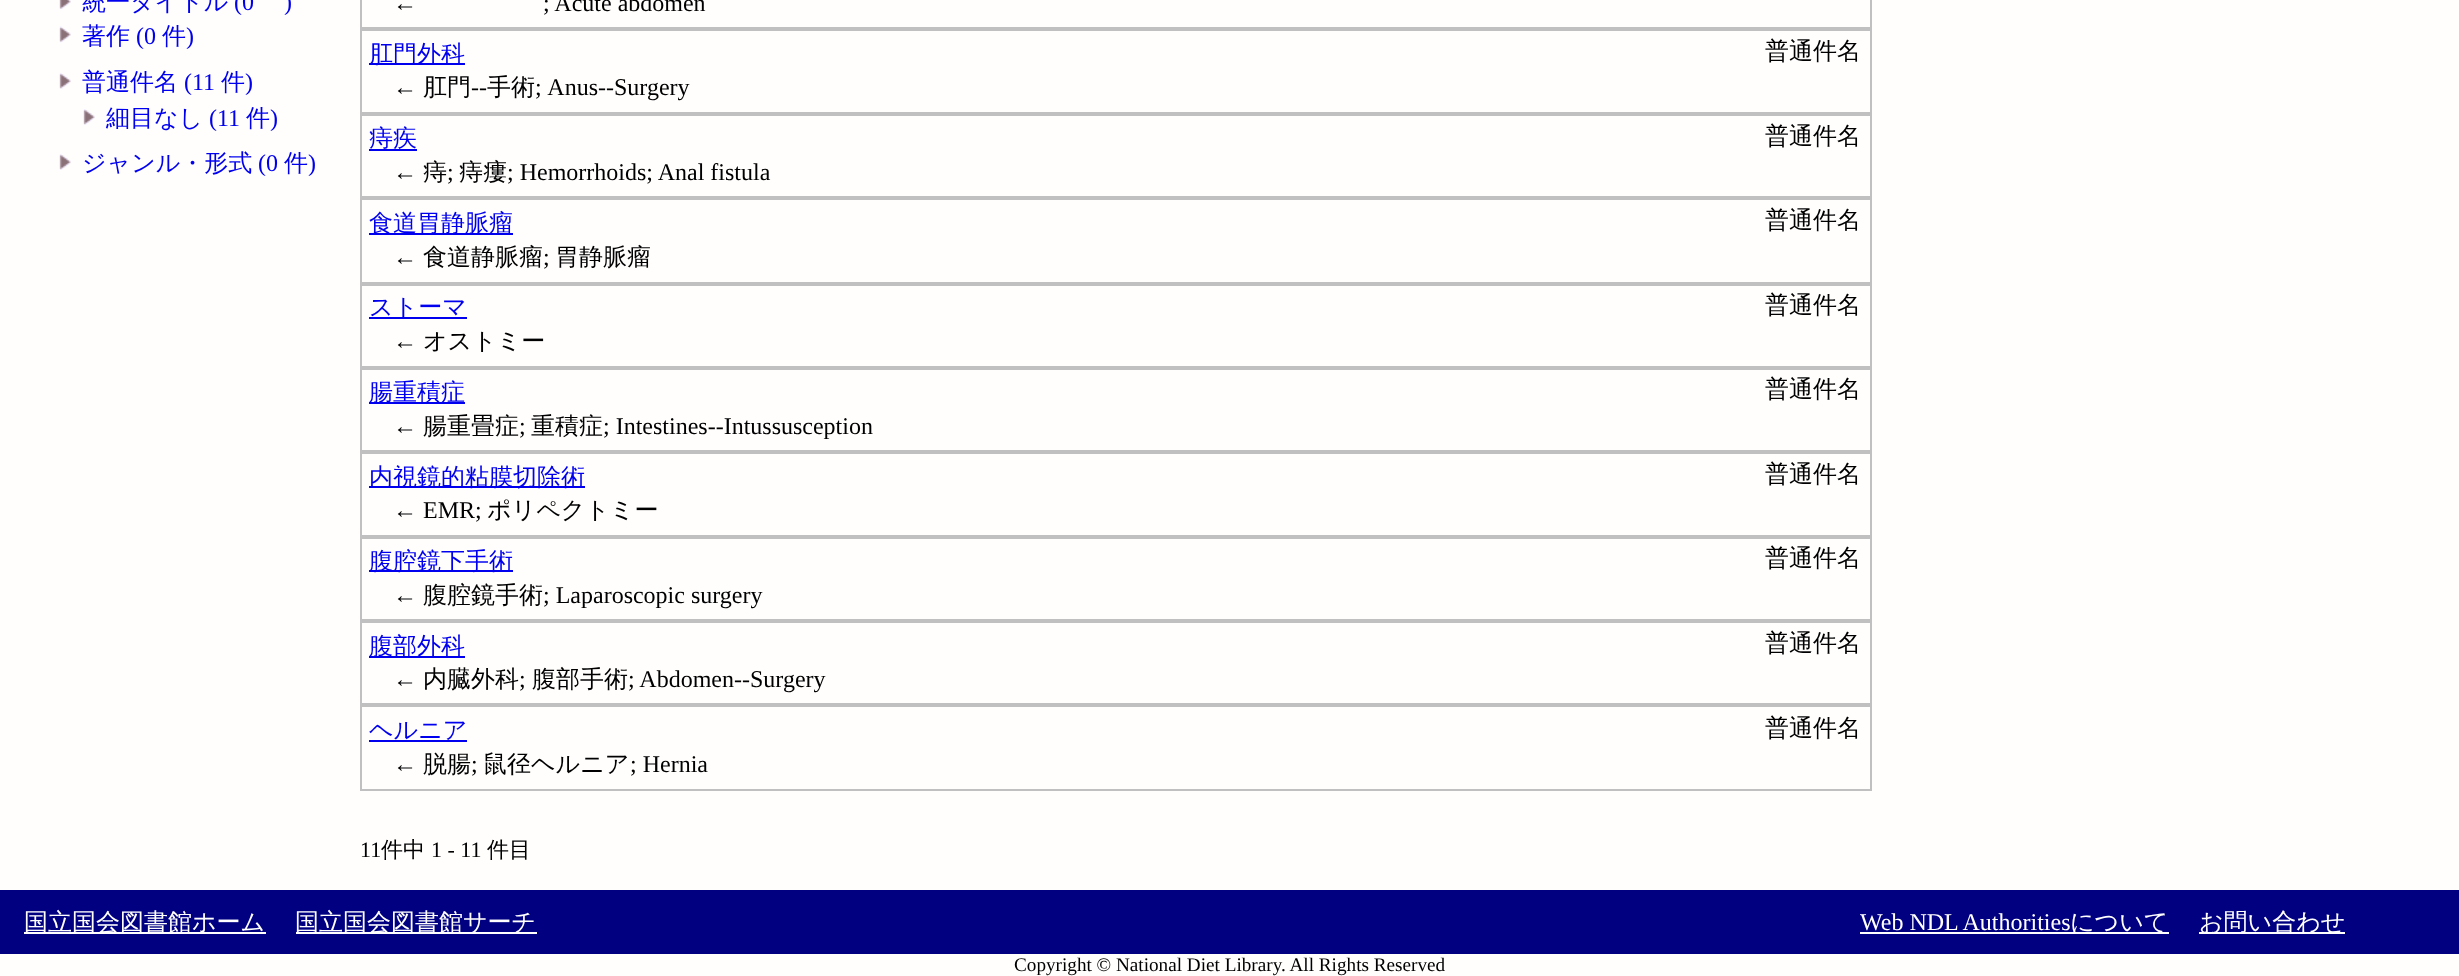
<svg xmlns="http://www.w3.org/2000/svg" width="2459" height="976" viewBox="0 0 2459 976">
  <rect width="100%" height="100%" fill="rgb(255,254,253)"/>
  <image x="59" y="0" width="12" height="10" href="pic1.png"/>
  <text x="82" y="10" font-family="WenQuanYi Zen Hei" font-size="24" font-weight="500" fill="rgb(0,0,238)">統一タイトル</text>
  <g font-family="Liberation Serif" font-size="24" fill="rgb(0,0,238)">
    <text x="234" y="10">(0</text>
    <text x="284" y="10">)</text>
  </g>
  <image x="59" y="26" width="12" height="17" href="pic2.png"/>
  <text x="82" y="44" font-family="WenQuanYi Zen Hei" font-size="24" font-weight="500" fill="rgb(0,0,238)">著作</text>
  <text x="136" y="44" font-family="Liberation Serif" font-size="24" fill="rgb(0,0,238)">(0</text>
  <text x="162" y="44" font-family="WenQuanYi Zen Hei" font-size="24" font-weight="500" fill="rgb(0,0,238)">件</text>
  <text x="186" y="44" font-family="Liberation Serif" font-size="24" fill="rgb(0,0,238)">)</text>
  <image x="59" y="73" width="12" height="16" href="pic3.png"/>
  <text x="82" y="90" font-family="WenQuanYi Zen Hei" font-size="24" font-weight="500" fill="rgb(0,0,238)">普通件名</text>
  <text x="184" y="90" font-family="Liberation Serif" font-size="24" fill="rgb(0,0,238)">(11</text>
  <text x="221" y="90" font-family="WenQuanYi Zen Hei" font-size="24" font-weight="500" fill="rgb(0,0,238)">件</text>
  <text x="245" y="90" font-family="Liberation Serif" font-size="24" fill="rgb(0,0,238)">)</text>
  <image x="83" y="109" width="12" height="16" href="pic3.png"/>
  <text x="106" y="126" font-family="WenQuanYi Zen Hei" font-size="24" font-weight="500" fill="rgb(0,0,238)">細目なし</text>
  <text x="209" y="126" font-family="Liberation Serif" font-size="24" fill="rgb(0,0,238)">(11</text>
  <text x="246" y="126" font-family="WenQuanYi Zen Hei" font-size="24" font-weight="500" fill="rgb(0,0,238)">件</text>
  <text x="270" y="126" font-family="Liberation Serif" font-size="24" fill="rgb(0,0,238)">)</text>
  <image x="59" y="154" width="12" height="16" href="pic3.png"/>
  <text x="82" y="171" font-family="WenQuanYi Zen Hei" font-size="24" font-weight="500" fill="rgb(0,0,238)">ジャンル・形式</text>
  <text x="258" y="171" font-family="Liberation Serif" font-size="24" fill="rgb(0,0,238)">(0</text>
  <text x="284" y="171" font-family="WenQuanYi Zen Hei" font-size="24" font-weight="500" fill="rgb(0,0,238)">件</text>
  <text x="308" y="171" font-family="Liberation Serif" font-size="24" fill="rgb(0,0,238)">)</text>
  <rect x="361" y="-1" width="1510" height="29" fill="none" stroke="rgb(192,192,192)" stroke-width="2"/>
  <g font-family="Liberation Serif" font-size="24" fill="rgb(0,0,0)">
    <text x="393" y="11">←</text>
    <text x="543" y="11">; Acute abdomen</text>
  </g>
  <rect x="361" y="30" width="1510" height="83" fill="none" stroke="rgb(192,192,192)" stroke-width="2"/>
  <rect x="369" y="63" width="96" height="2" fill="rgb(0,0,238)"/>
  <text x="369" y="62" font-family="WenQuanYi Zen Hei" font-size="24" font-weight="500" fill="rgb(0,0,238)">肛門外科</text>
  <text x="1765" y="59" font-family="WenQuanYi Zen Hei" font-size="24" font-weight="500" fill="rgb(0,0,0)">普通件名</text>
  <text x="393" y="95" font-family="Liberation Serif" font-size="24" fill="rgb(0,0,0)">←</text>
  <text x="423" y="95" font-family="WenQuanYi Zen Hei" font-size="24" font-weight="500" fill="rgb(0,0,0)">肛門</text>
  <text x="471" y="95" font-family="Liberation Serif" font-size="24" fill="rgb(0,0,0)">--</text>
  <text x="487" y="95" font-family="WenQuanYi Zen Hei" font-size="24" font-weight="500" fill="rgb(0,0,0)">手術</text>
  <text x="535" y="95" word-spacing="1" font-family="Liberation Serif" font-size="24" fill="rgb(0,0,0)">; Anus--Surgery</text>
  <rect x="361" y="115" width="1510" height="82" fill="none" stroke="rgb(192,192,192)" stroke-width="2"/>
  <rect x="369" y="149" width="48" height="2" fill="rgb(0,0,238)"/>
  <text x="369" y="146" font-family="WenQuanYi Zen Hei" font-size="24" font-weight="500" fill="rgb(0,0,238)">痔疾</text>
  <text x="1765" y="144" font-family="WenQuanYi Zen Hei" font-size="24" font-weight="500" fill="rgb(0,0,0)">普通件名</text>
  <text x="393" y="180" font-family="Liberation Serif" font-size="24" fill="rgb(0,0,0)">←</text>
  <text x="423" y="180" font-family="WenQuanYi Zen Hei" font-size="24" font-weight="500" fill="rgb(0,0,0)">痔</text>
  <text x="447" y="180" font-family="Liberation Serif" font-size="24" fill="rgb(0,0,0)">;</text>
  <text x="459" y="180" font-family="WenQuanYi Zen Hei" font-size="24" font-weight="500" fill="rgb(0,0,0)">痔瘻</text>
  <text x="507" y="180" font-family="Liberation Serif" font-size="24" fill="rgb(0,0,0)">; Hemorrhoids; Anal fistula</text>
  <rect x="361" y="199" width="1510" height="84" fill="none" stroke="rgb(192,192,192)" stroke-width="2"/>
  <rect x="369" y="233" width="144" height="2" fill="rgb(0,0,238)"/>
  <text x="369" y="231" font-family="WenQuanYi Zen Hei" font-size="24" font-weight="500" fill="rgb(0,0,238)">食道胃静脈瘤</text>
  <text x="1765" y="228" font-family="WenQuanYi Zen Hei" font-size="24" font-weight="500" fill="rgb(0,0,0)">普通件名</text>
  <text x="393" y="265" font-family="Liberation Serif" font-size="24" fill="rgb(0,0,0)">←</text>
  <text x="423" y="265" font-family="WenQuanYi Zen Hei" font-size="24" font-weight="500" fill="rgb(0,0,0)">食道静脈瘤</text>
  <text x="543" y="265" font-family="Liberation Serif" font-size="24" fill="rgb(0,0,0)">;</text>
  <text x="555" y="265" font-family="WenQuanYi Zen Hei" font-size="24" font-weight="500" fill="rgb(0,0,0)">胃静脈瘤</text>
  <rect x="361" y="285" width="1510" height="82" fill="none" stroke="rgb(192,192,192)" stroke-width="2"/>
  <rect x="369" y="317" width="98" height="2" fill="rgb(0,0,238)"/>
  <text x="369" y="315" font-family="WenQuanYi Zen Hei" font-size="24" font-weight="500" fill="rgb(0,0,238)">ストーマ</text>
  <text x="1765" y="313" font-family="WenQuanYi Zen Hei" font-size="24" font-weight="500" fill="rgb(0,0,0)">普通件名</text>
  <text x="393" y="349" font-family="Liberation Serif" font-size="24" fill="rgb(0,0,0)">←</text>
  <text x="423" y="349" font-family="WenQuanYi Zen Hei" font-size="24" font-weight="500" fill="rgb(0,0,0)">オストミー</text>
  <rect x="361" y="369" width="1510" height="82" fill="none" stroke="rgb(192,192,192)" stroke-width="2"/>
  <rect x="369" y="402" width="96" height="2" fill="rgb(0,0,238)"/>
  <text x="369" y="400" font-family="WenQuanYi Zen Hei" font-size="24" font-weight="500" fill="rgb(0,0,238)">腸重積症</text>
  <text x="1765" y="397" font-family="WenQuanYi Zen Hei" font-size="24" font-weight="500" fill="rgb(0,0,0)">普通件名</text>
  <text x="393" y="434" font-family="Liberation Serif" font-size="24" fill="rgb(0,0,0)">←</text>
  <text x="423" y="434" font-family="WenQuanYi Zen Hei" font-size="24" font-weight="500" fill="rgb(0,0,0)">腸重畳症</text>
  <text x="519" y="434" font-family="Liberation Serif" font-size="24" fill="rgb(0,0,0)">;</text>
  <text x="531" y="434" font-family="WenQuanYi Zen Hei" font-size="24" font-weight="500" fill="rgb(0,0,0)">重積症</text>
  <text x="603" y="434" font-family="Liberation Serif" font-size="24" fill="rgb(0,0,0)">; Intestines--Intussusception</text>
  <rect x="361" y="453" width="1510" height="83" fill="none" stroke="rgb(192,192,192)" stroke-width="2"/>
  <rect x="369" y="486" width="216" height="2" fill="rgb(0,0,238)"/>
  <text x="369" y="485" font-family="WenQuanYi Zen Hei" font-size="24" font-weight="500" fill="rgb(0,0,238)">内視鏡的粘膜切除術</text>
  <text x="1765" y="482" font-family="WenQuanYi Zen Hei" font-size="24" font-weight="500" fill="rgb(0,0,0)">普通件名</text>
  <text x="393" y="518" font-family="Liberation Serif" font-size="24" fill="rgb(0,0,0)">← EMR;</text>
  <text x="487" y="518" font-family="WenQuanYi Zen Hei" font-size="24" font-weight="500" fill="rgb(0,0,0)">ポリペクトミー</text>
  <rect x="361" y="538" width="1510" height="82" fill="none" stroke="rgb(192,192,192)" stroke-width="2"/>
  <rect x="369" y="570" width="144" height="2" fill="rgb(0,0,238)"/>
  <text x="369" y="569" font-family="WenQuanYi Zen Hei" font-size="24" font-weight="500" fill="rgb(0,0,238)">腹腔鏡下手術</text>
  <text x="1765" y="566" font-family="WenQuanYi Zen Hei" font-size="24" font-weight="500" fill="rgb(0,0,0)">普通件名</text>
  <text x="393" y="603" font-family="Liberation Serif" font-size="24" fill="rgb(0,0,0)">←</text>
  <text x="423" y="603" font-family="WenQuanYi Zen Hei" font-size="24" font-weight="500" fill="rgb(0,0,0)">腹腔鏡手術</text>
  <text x="543" y="603" font-family="Liberation Serif" font-size="24" fill="rgb(0,0,0)">; Laparoscopic surgery</text>
  <rect x="361" y="622" width="1510" height="82" fill="none" stroke="rgb(192,192,192)" stroke-width="2"/>
  <rect x="369" y="656" width="96" height="2" fill="rgb(0,0,238)"/>
  <text x="369" y="654" font-family="WenQuanYi Zen Hei" font-size="24" font-weight="500" fill="rgb(0,0,238)">腹部外科</text>
  <text x="1765" y="651" font-family="WenQuanYi Zen Hei" font-size="24" font-weight="500" fill="rgb(0,0,0)">普通件名</text>
  <text x="393" y="687" font-family="Liberation Serif" font-size="24" fill="rgb(0,0,0)">←</text>
  <text x="423" y="687" font-family="WenQuanYi Zen Hei" font-size="24" font-weight="500" fill="rgb(0,0,0)">内臓外科</text>
  <text x="519" y="687" font-family="Liberation Serif" font-size="24" fill="rgb(0,0,0)">;</text>
  <text x="532" y="687" font-family="WenQuanYi Zen Hei" font-size="24" font-weight="500" fill="rgb(0,0,0)">腹部手術</text>
  <text x="628" y="687" font-family="Liberation Serif" font-size="24" fill="rgb(0,0,0)">; Abdomen--Surgery</text>
  <rect x="361" y="706" width="1510" height="84" fill="none" stroke="rgb(192,192,192)" stroke-width="2"/>
  <text x="369" y="738" font-family="WenQuanYi Zen Hei" font-size="24" font-weight="500" fill="rgb(0,0,238)">ヘルニア</text>
  <rect x="369" y="740" width="98" height="2" fill="rgb(0,0,238)"/>
  <text x="1765" y="736" font-family="WenQuanYi Zen Hei" font-size="24" font-weight="500" fill="rgb(0,0,0)">普通件名</text>
  <text x="393" y="772" font-family="Liberation Serif" font-size="24" fill="rgb(0,0,0)">←</text>
  <text x="423" y="772" font-family="WenQuanYi Zen Hei" font-size="24" font-weight="500" fill="rgb(0,0,0)">脱腸</text>
  <text x="471" y="772" font-family="Liberation Serif" font-size="24" fill="rgb(0,0,0)">;</text>
  <text x="483" y="772" font-family="WenQuanYi Zen Hei" font-size="24" font-weight="500" fill="rgb(0,0,0)">鼠径ヘルニア</text>
  <text x="630" y="772" font-family="Liberation Serif" font-size="24" fill="rgb(0,0,0)">; Hernia</text>
  <text x="360" y="857" font-family="Liberation Serif" font-size="22" fill="rgb(0,0,0)">11</text>
  <text x="381" y="857" font-family="WenQuanYi Zen Hei" font-size="22" font-weight="500" fill="rgb(0,0,0)">件中</text>
  <text x="431" y="857" font-family="Liberation Serif" font-size="22" fill="rgb(0,0,0)">1 - 11</text>
  <text x="487" y="857" font-family="WenQuanYi Zen Hei" font-size="22" font-weight="500" fill="rgb(0,0,0)">件目</text>
  <rect x="0" y="890" width="2459" height="64" fill="rgb(0,0,128)"/>
  <rect x="24" y="932" width="242" height="2" fill="rgb(255,255,255)"/>
  <text x="24" y="930" font-family="WenQuanYi Zen Hei" font-size="24" font-weight="500" fill="rgb(255,255,255)">国立国会図書館ホーム</text>
  <rect x="296" y="932" width="241" height="2" fill="rgb(255,255,255)"/>
  <text x="295" y="930" font-family="WenQuanYi Zen Hei" font-size="24" font-weight="500" fill="rgb(255,255,255)">国立国会図書館サーチ</text>
  <text x="1860" y="930" font-family="Liberation Serif" font-size="24" fill="rgb(255,255,255)">Web NDL Authorities</text>
  <rect x="1860" y="932" width="309" height="2" fill="rgb(255,255,255)"/>
  <text x="2070" y="930" font-family="WenQuanYi Zen Hei" font-size="24" font-weight="500" fill="rgb(255,255,255)">について</text>
  <rect x="2199" y="932" width="146" height="2" fill="rgb(255,255,255)"/>
  <text x="2199" y="930" font-family="WenQuanYi Zen Hei" font-size="24" font-weight="500" fill="rgb(255,255,255)">お問い合わせ</text>
  <text x="1014" y="971" font-family="Liberation Serif" font-size="19.2" fill="rgb(0,0,0)">Copyright © National Diet Library. All Rights Reserved</text>
</svg>
